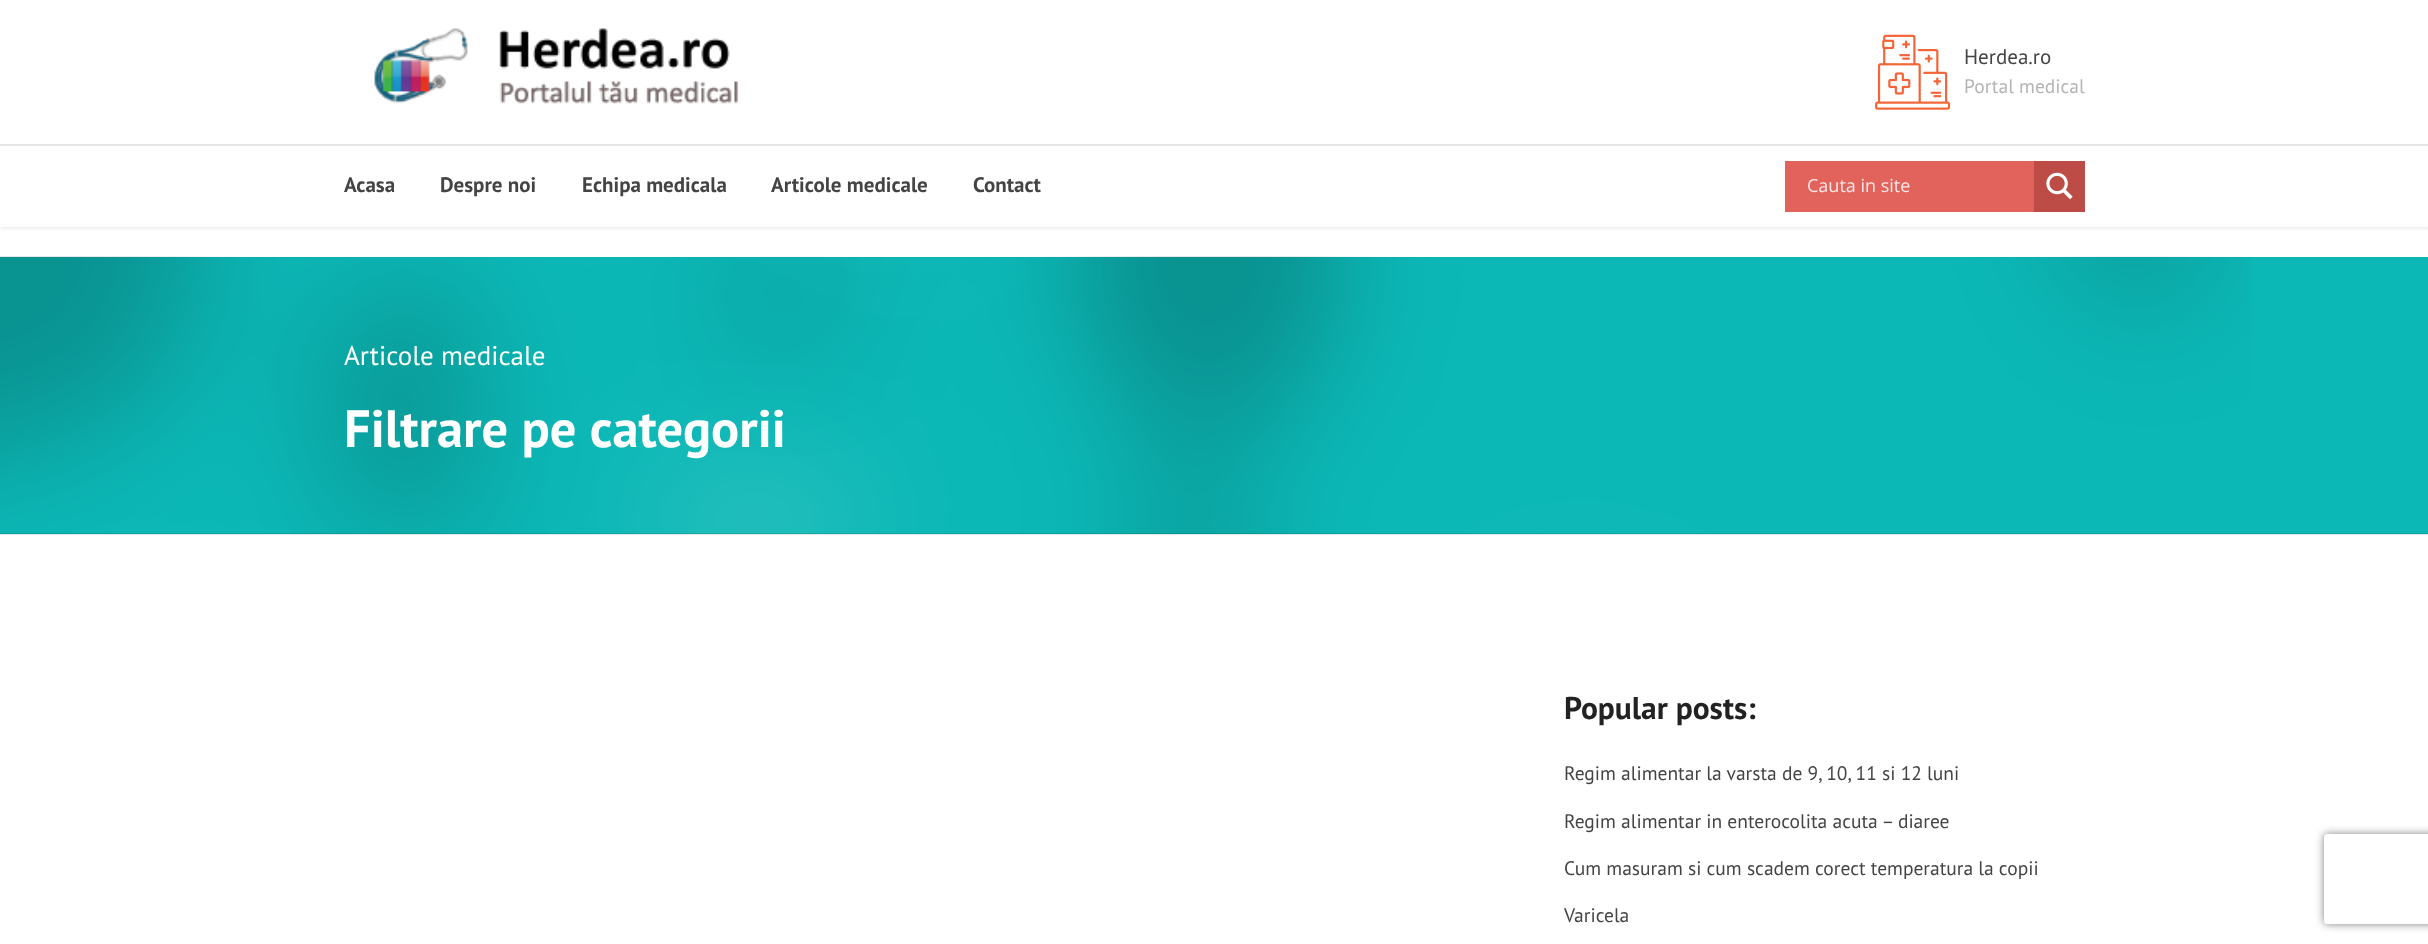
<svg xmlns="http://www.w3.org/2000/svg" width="2428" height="944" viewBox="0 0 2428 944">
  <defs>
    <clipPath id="clip1"><path d="M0 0H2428V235H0ZM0 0H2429V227H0Z" clip-rule="evenodd"/></clipPath>
    <clipPath id="clip2"><rect x="1808" y="173" width="219" height="25"/></clipPath>
    <clipPath id="clip3"><path d="M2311 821H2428V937H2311ZM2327 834H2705C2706.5 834 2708 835.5 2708 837V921C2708 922.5 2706.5 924 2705 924H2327C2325.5 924 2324 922.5 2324 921V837C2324 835.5 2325.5 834 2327 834Z" clip-rule="evenodd"/></clipPath>
  </defs>
  <rect width="100%" height="100%" fill="rgb(255,255,255)"/>
  <g clip-path="url(#clip1)">
    <rect x="0" y="2" width="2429" height="226" fill="rgba(0,0,0,0.1)" filter="blur(2px)"/>
  </g>
  <image x="374" y="28" width="365" height="76" href="pic1.png"/>
  <image x="1875" y="34" width="76" height="76" href="pic2.png"/>
  <text x="1964" y="64" font-family="PT Sans" font-size="21" fill="rgb(68,68,68)">Herdea.ro</text>
  <text x="1964" y="93" font-family="PT Sans" font-size="19.5" fill="rgb(180,180,180)">Portal medical</text>
  <rect x="0" y="144" width="2428" height="2" fill="rgb(230,230,230)"/>
  <g font-family="PT Sans" font-size="21" font-weight="bold" fill="rgb(68,68,68)">
    <text x="344" y="192">Acasa</text>
    <text x="440" y="192">Despre noi</text>
    <text x="582" y="192">Echipa medicala</text>
    <text x="771" y="192">Articole medicale</text>
    <text x="973" y="192">Contact</text>
  </g>
  <rect x="1785" y="161" width="249" height="51" fill="rgb(225,99,92)"/>
  <g clip-path="url(#clip2)">
    <text x="1807" y="192" font-family="Open Sans" font-size="18" fill="rgb(251,232,231)">Cauta in site</text>
  </g>
  <rect x="2034" y="161" width="51" height="51" fill="rgb(190,76,70)"/>
  <image x="2046" y="172" width="27" height="28" href="pic3.png"/>
  <rect x="0" y="257" width="2428" height="277" fill="rgb(12,184,182)"/>
  <image x="0" y="256" width="2252" height="278" href="pic4.png"/>
  <rect x="0" y="533" width="2428" height="2" fill="rgba(0,0,0,0.1)"/>
  <text x="344" y="365" font-family="PT Sans" font-size="27" fill="rgb(255,255,255)">Articole medicale</text>
  <text x="344" y="447" font-family="PT Sans" font-size="52.5" font-weight="bold" fill="rgb(255,255,255)">Filtrare pe categorii</text>
  <text x="1564" y="719" font-family="PT Sans" font-size="31.5" font-weight="bold" fill="rgb(34,34,34)">Popular posts:</text>
  <g font-family="PT Sans" font-size="19.5" fill="rgb(68,68,68)">
    <text x="1564" y="780">Regim alimentar la varsta de 9, 10, 11 si 12 luni</text>
    <text x="1564" y="828">Regim alimentar in enterocolita acuta – diaree</text>
    <text x="1564" y="875">Cum masuram si cum scadem corect temperatura la copii</text>
    <text x="1564" y="922">Varicela</text>
  </g>
  <g clip-path="url(#clip3)">
    <rect x="2324" y="834" width="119" height="90" rx="3" fill="rgb(128,128,128)" filter="blur(4px)"/>
  </g>
</svg>
